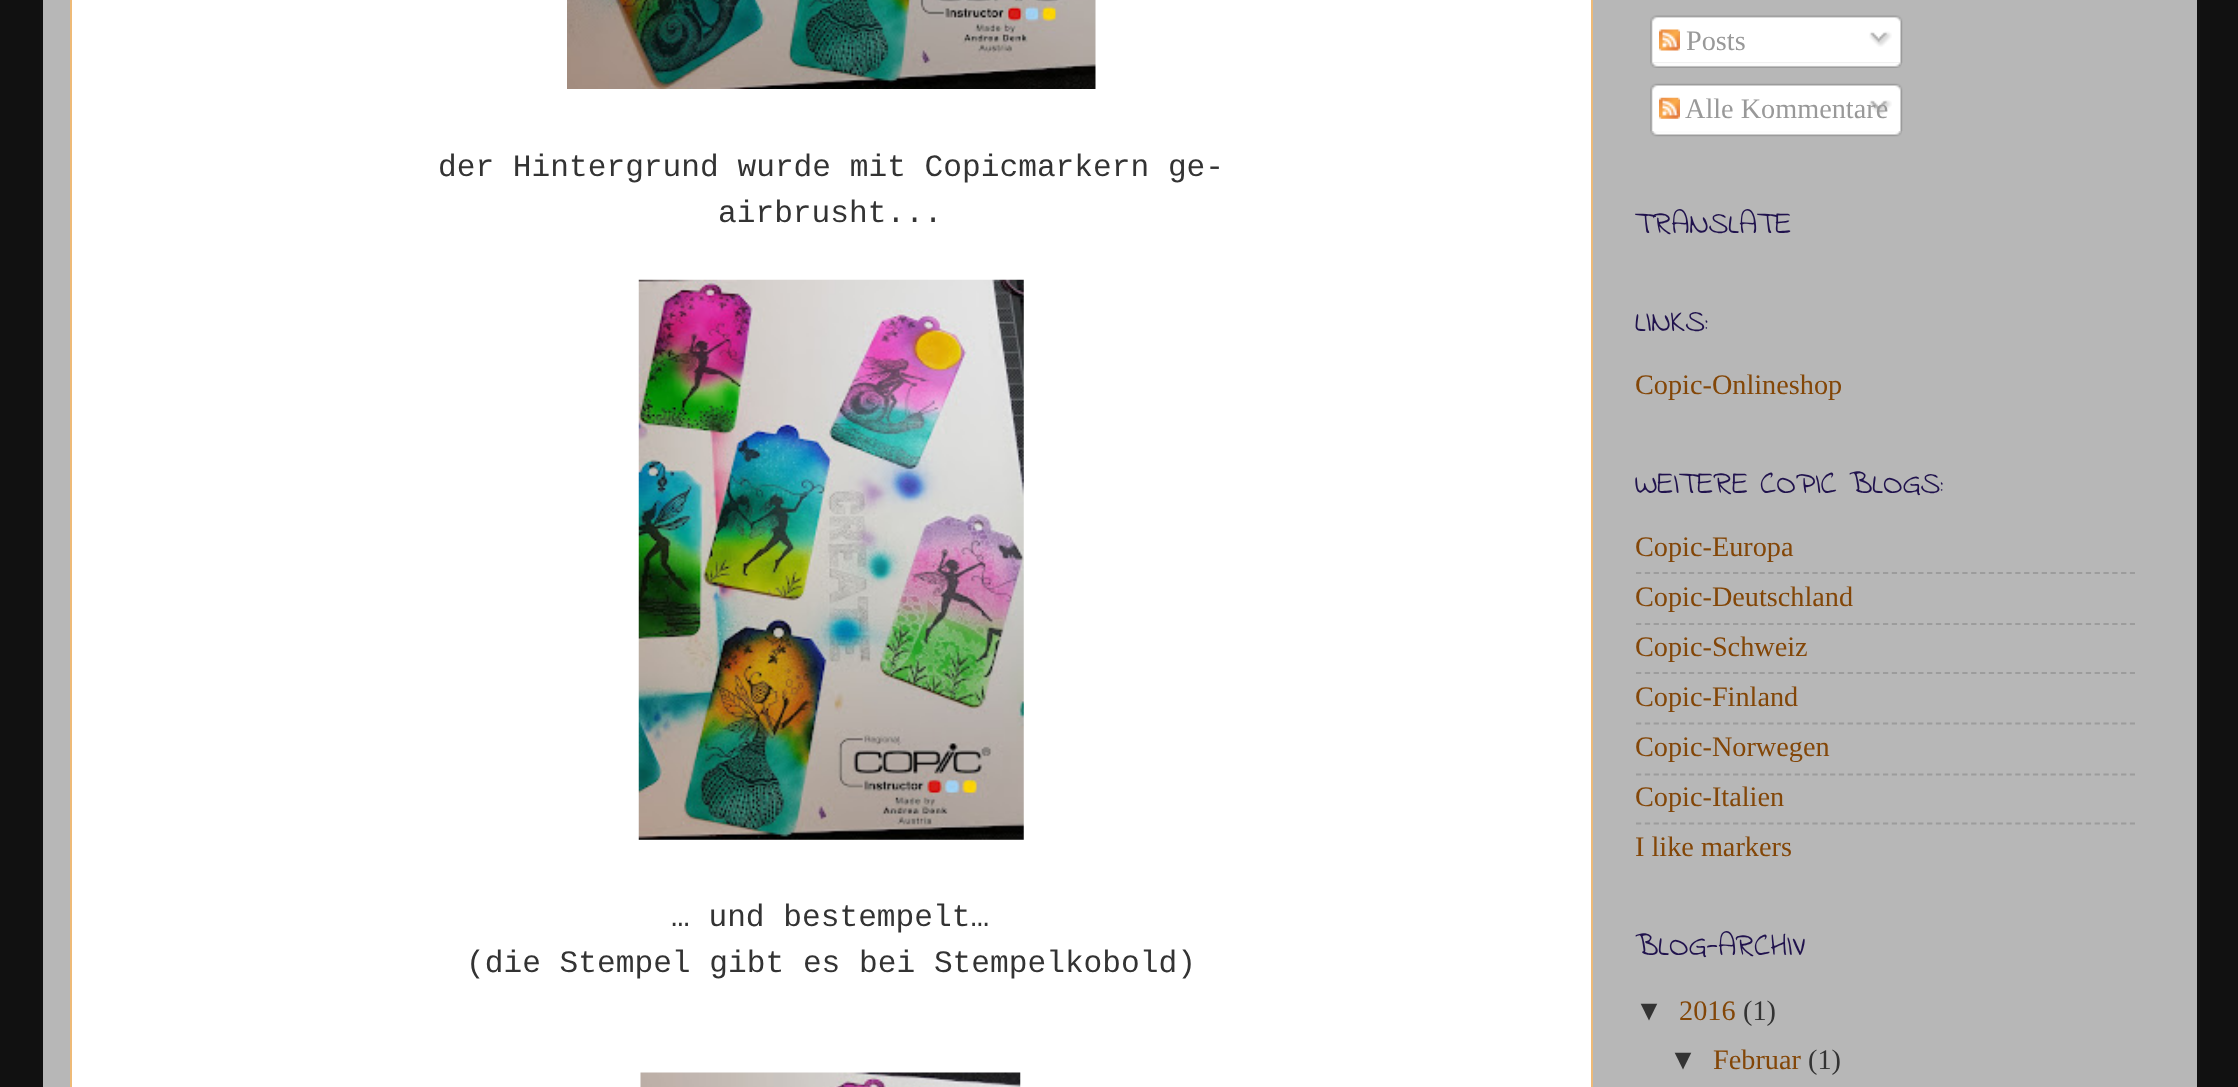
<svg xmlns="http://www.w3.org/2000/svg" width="2238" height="1087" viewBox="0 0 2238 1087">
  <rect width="100%" height="100%" fill="rgb(17,17,17)"/>
  <rect x="43" y="0" width="2154" height="1087" fill="rgb(183,183,183)"/>
  <rect x="71" y="-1" width="1521" height="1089" fill="rgb(255,255,255)" stroke="rgb(238,186,119)" stroke-width="2"/>
  <image x="567" y="0" width="529" height="89" href="pic1.png"/>
  <g font-family="Liberation Mono" font-size="31.2" fill="rgb(51,51,51)">
    <text x="438" y="176">der Hintergrund wurde mit Copicmarkern ge-</text>
    <text x="718" y="222">airbrusht...</text>
  </g>
  <image x="638" y="279" width="386" height="561" href="pic2.png"/>
  <g font-family="Liberation Mono" font-size="31.2" fill="rgb(51,51,51)">
    <text x="671" y="926">… und bestempelt…</text>
    <text x="466" y="972">(die Stempel gibt es bei Stempelkobold)</text>
  </g>
  <image x="640" y="1072" width="381" height="15" href="pic3.png"/>
  <image x="1650" y="15" width="253" height="48" href="pic4.png"/>
  <image x="1659" y="29" width="21" height="22" href="pic5.png"/>
  <text x="1686" y="50" font-family="Liberation Serif" font-size="28.25" fill="rgb(153,153,153)">Posts</text>
  <image x="1869" y="31" width="23" height="16" href="pic6.png"/>
  <image x="1650" y="62" width="252" height="6" href="pic7.png"/>
  <image x="1650" y="83" width="253" height="48" href="pic8.png"/>
  <image x="1659" y="97" width="21" height="22" href="pic9.png"/>
  <image x="1869" y="100" width="23" height="15" href="pic10.png"/>
  <text x="1685" y="118" font-family="Liberation Serif" font-size="28.25" fill="rgb(153,153,153)">Alle Kommentare</text>
  <image x="1650" y="131" width="252" height="6" href="pic11.png"/>
  <g font-family="Indie Flower" font-size="31.5" fill="rgb(32,18,77)">
    <text x="1635" y="233">TRANSLATE</text>
    <text x="1635" y="331">LINKS:</text>
  </g>
  <text x="1635" y="394" font-family="Liberation Serif" font-size="28.25" fill="rgb(131,70,7)">Copic-Onlineshop</text>
  <text x="1635" y="493" font-family="Indie Flower" font-size="31.5" fill="rgb(32,18,77)">WEITERE COPIC BLOGS:</text>
  <text x="1635" y="556" font-family="Liberation Serif" font-size="28.25" fill="rgb(131,70,7)">Copic-Europa</text>
  <path d="M1636 573H2135" fill="none" stroke="rgb(156,156,156)" stroke-width="1.8" stroke-dasharray="5.25 3.57"/>
  <text x="1635" y="606" font-family="Liberation Serif" font-size="28.25" fill="rgb(131,70,7)">Copic-Deutschland</text>
  <path d="M1636 624H2135" fill="none" stroke="rgb(156,156,156)" stroke-width="1.8" stroke-dasharray="5.25 3.57"/>
  <text x="1635" y="656" font-family="Liberation Serif" font-size="28.25" fill="rgb(131,70,7)">Copic-Schweiz</text>
  <path d="M1636 673H2135" fill="none" stroke="rgb(156,156,156)" stroke-width="1.8" stroke-dasharray="5.25 3.57"/>
  <text x="1635" y="706" font-family="Liberation Serif" font-size="28.25" fill="rgb(131,70,7)">Copic-Finland</text>
  <path d="M1636 723.5H2135" fill="none" stroke="rgb(156,156,156)" stroke-width="1.8" stroke-dasharray="5.25 3.57"/>
  <text x="1635" y="756" font-family="Liberation Serif" font-size="28.25" fill="rgb(131,70,7)">Copic-Norwegen</text>
  <path d="M1636 774.5H2135" fill="none" stroke="rgb(156,156,156)" stroke-width="1.8" stroke-dasharray="5.25 3.57"/>
  <text x="1635" y="806" font-family="Liberation Serif" font-size="28.25" fill="rgb(131,70,7)">Copic-Italien</text>
  <path d="M1636 823.5H2135" fill="none" stroke="rgb(156,156,156)" stroke-width="1.8" stroke-dasharray="5.25 3.57"/>
  <text x="1635" y="856" font-family="Liberation Serif" font-size="28.25" fill="rgb(131,70,7)">I like markers</text>
  <text x="1635" y="955" font-family="Indie Flower" font-size="31.5" fill="rgb(32,18,77)">BLOG-ARCHIV</text>
  <text x="1635" y="1020" font-family="Liberation Sans" font-size="28.25" fill="rgb(51,51,51)">▼</text>
  <text x="1679" y="1020" font-family="Liberation Serif" font-size="28.25" fill="rgb(131,70,7)">2016</text>
  <text x="1743" y="1020" font-family="Liberation Serif" font-size="28.25" fill="rgb(51,51,51)">(1)</text>
  <text x="1669" y="1069" font-family="Liberation Sans" font-size="28.25" fill="rgb(51,51,51)">▼</text>
  <text x="1713" y="1069" font-family="Liberation Serif" font-size="28.25" fill="rgb(131,70,7)">Februar</text>
  <text x="1808" y="1069" font-family="Liberation Serif" font-size="28.25" fill="rgb(51,51,51)">(1)</text>
</svg>
